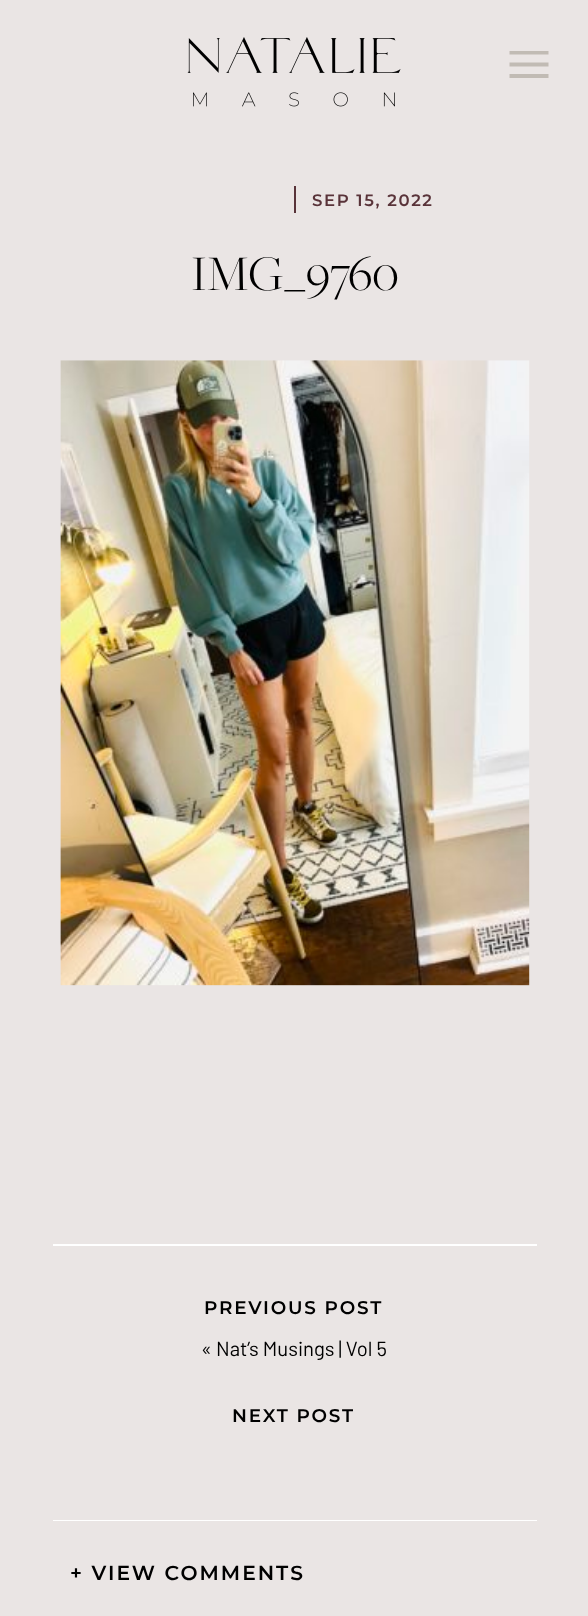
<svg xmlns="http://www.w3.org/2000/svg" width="588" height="1616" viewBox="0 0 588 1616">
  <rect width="100%" height="100%" fill="rgb(234,229,228)"/>
  <image x="187" y="37" width="214" height="70" href="pic1.png"/>
  <path d="M509.5 62.5H548.5V66.5H509.5ZM509.5 51H548.5V54.5H509.5ZM509.5 74H548.5V78H509.5Z" fill="rgb(193,187,180)"/>
  <rect x="294" y="186" width="2" height="27" fill="rgb(89,51,57)"/>
  <text x="312" y="206" font-family="Montserrat" font-size="16.5" font-weight="100" letter-spacing="1.6" fill="rgb(89,51,57)">SEP 15, 2022</text>
  <text x="191" y="290" font-family="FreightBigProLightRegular" font-size="51.5" font-weight="300" fill="rgb(0,0,0)">IMG_9760</text>
  <image x="60" y="360" width="470" height="626" href="pic2.png"/>
  <rect x="53" y="1244" width="484" height="2" fill="rgb(255,255,255)"/>
  <text x="204" y="1314" font-family="Montserrat" font-size="18.4" font-weight="100" letter-spacing="1.8" fill="rgb(0,0,0)">PREVIOUS POST</text>
  <text x="201" y="1356" font-family="Barlow" font-size="20.25" fill="rgb(0,0,0)">« Nat’s Musings | Vol 5</text>
  <text x="232" y="1422" font-family="Montserrat" font-size="18.4" font-weight="100" letter-spacing="1.8" fill="rgb(0,0,0)">NEXT POST</text>
  <rect x="53" y="1520" width="484" height="1" fill="rgb(255,255,255)"/>
  <text x="70" y="1580" font-family="Montserrat" font-size="20.25" font-weight="100" letter-spacing="2" fill="rgb(0,0,0)">+ VIEW COMMENTS</text>
</svg>
